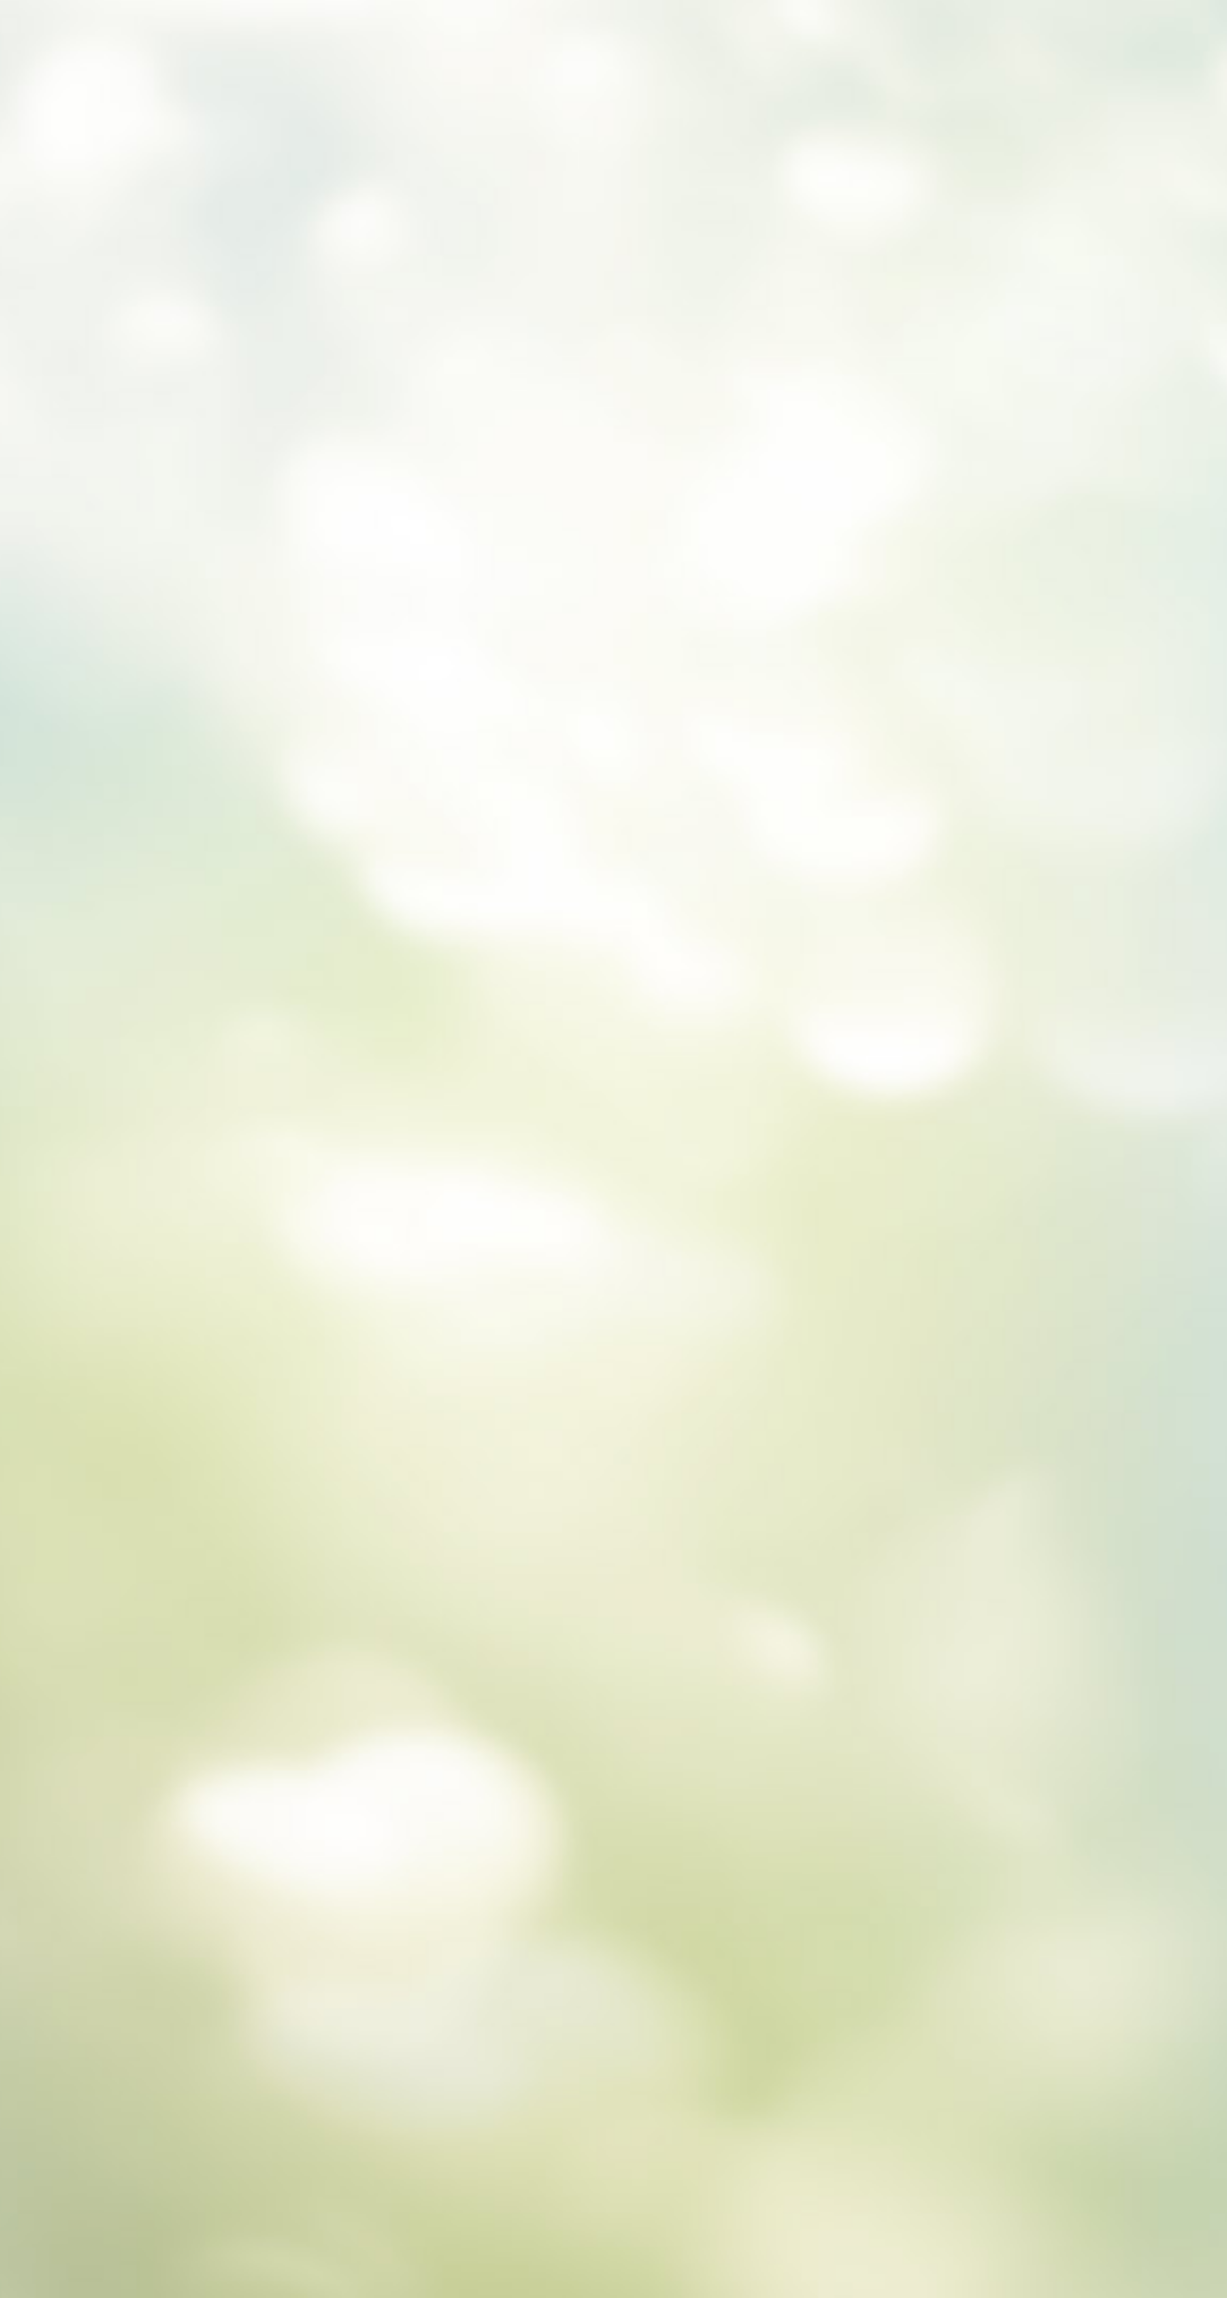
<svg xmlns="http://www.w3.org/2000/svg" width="1227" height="2298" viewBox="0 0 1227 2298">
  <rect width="100%" height="100%" fill="rgb(255,255,255)"/>
  <image x="0" y="0" width="1227" height="2298" href="pic1.png"/>
</svg>
